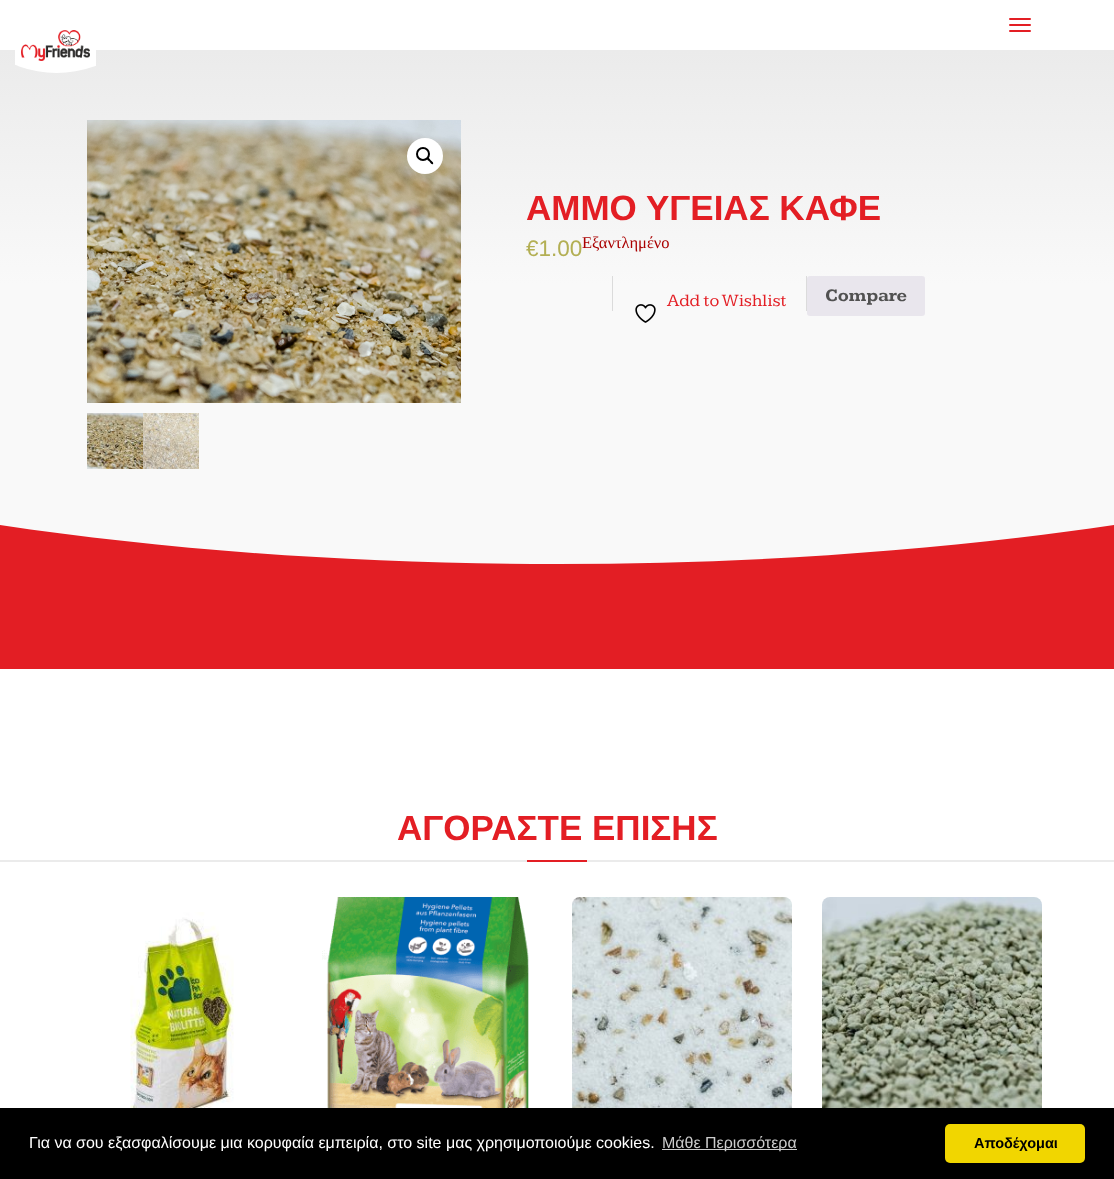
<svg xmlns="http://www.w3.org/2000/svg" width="1114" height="1179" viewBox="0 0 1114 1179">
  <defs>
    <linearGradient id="g1" gradientUnits="userSpaceOnUse" x1="557" y1="50" x2="557" y2="509"><stop offset="0" stop-color="rgb(235,235,235)"/><stop offset="0.51" stop-color="rgb(249,249,249)"/><stop offset="1" stop-color="rgb(249,249,249)"/></linearGradient>
    <clipPath id="clip1"><rect x="15" y="0" width="81" height="73"/></clipPath>
    <clipPath id="clip2"><rect x="0" y="509" width="1114" height="70"/></clipPath>
  </defs>
  <rect width="100%" height="100%" fill="rgb(255,255,255)"/>
  <rect x="0" y="50" width="1114" height="459" fill="url(#g1)"/>
  <g clip-path="url(#clip1)">
    <rect x="-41" y="-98" width="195" height="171" rx="97.5" fill="rgb(255,255,255)"/>
  </g>
  <image x="21" y="30" width="69" height="31" href="pic1.png"/>
  <rect x="1009" y="18" width="22" height="2" rx="1" fill="rgb(227,30,36)"/>
  <rect x="1009" y="24" width="22" height="2" rx="1" fill="rgb(227,30,36)"/>
  <rect x="1009" y="30" width="22" height="2" rx="1" fill="rgb(227,30,36)"/>
  <image x="87" y="120" width="374" height="283" href="pic2.png"/>
  <circle cx="425" cy="156" r="18" fill="rgb(255,255,255)"/>
  <circle cx="423" cy="154" r="6" fill="none" stroke="rgb(0,0,0)" stroke-width="2"/>
  <path d="M427.5 158C428.5 157 430 159.5 431 160.5C431.5 161 434 162.5 433 164C432 165 430 162.5 429.5 161.5C429 161 426 159.5 427.5 158Z" fill="rgb(0,0,0)"/>
  <image x="87" y="413" width="56" height="56" href="pic3.png"/>
  <image x="143" y="413" width="56" height="56" href="pic4.png"/>
  <text x="526" y="220" font-family="Liberation Sans" font-size="35" font-weight="bold" fill="rgb(227,30,36)">ΑΜΜΟ ΥΓΕΙΑΣ ΚΑΦΕ</text>
  <text x="526" y="256" font-family="Liberation Sans" font-size="22.5" fill="rgb(179,175,84)">€1.00</text>
  <text x="582" y="248" font-family="Liberation Serif" font-size="16.5" fill="rgb(170,0,0)">Εξαντλημένο</text>
  <rect x="806" y="276" width="1" height="35" fill="rgb(219,219,219)"/>
  <rect x="612" y="276" width="1" height="35" fill="rgb(219,219,219)"/>
  <text x="667" y="306" font-family="Kameron" font-size="18" fill="rgb(227,30,36)">Add to Wishlist</text>
  <image x="635" y="304" width="21" height="19" href="pic5.png"/>
  <rect x="807" y="276" width="118" height="40" rx="3" fill="rgb(233,230,237)"/>
  <text x="825" y="301" font-family="Kameron" font-size="18" font-weight="bold" fill="rgb(81,81,81)">Compare</text>
  <rect x="0" y="525" width="1114" height="144" fill="rgb(227,30,36)"/>
  <g clip-path="url(#clip2)">
    <path d="M-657-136V214C-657 407-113 564 557 564C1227 564 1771 407 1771 214V-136H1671V114C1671 252 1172 364 557 364C-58 364-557 252-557 114V-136Z" fill="rgb(249,249,249)"/>
  </g>
  <text x="397" y="840" font-family="Liberation Sans" font-size="35" font-weight="bold" fill="rgb(227,30,36)">ΑΓΟΡΑΣΤΕ ΕΠΙΣΗΣ</text>
  <rect x="0" y="860" width="1114" height="2" fill="rgb(235,235,235)"/>
  <rect x="527" y="860" width="60" height="2" fill="rgb(227,30,36)"/>
  <image x="130" y="912" width="104" height="196" href="pic6.png"/>
  <image x="322" y="897" width="207" height="211" href="pic7.png"/>
  <image x="572" y="897" width="220" height="211" href="pic8.png"/>
  <image x="822" y="897" width="220" height="211" href="pic9.png"/>
  <rect x="0" y="1108" width="1114" height="71" fill="rgb(0,0,0)"/>
  <text x="29" y="1148" font-family="Liberation Sans" font-size="16" fill="rgb(255,255,255)">Για να σου εξασφαλίσουμε μια κορυφαία εμπειρία, στο site μας χρησιμοποιούμε cookies.</text>
  <rect x="662" y="1149" width="135" height="1" fill="rgb(204,204,204)"/>
  <text x="662" y="1148" font-family="Liberation Sans" font-size="16" fill="rgb(204,204,204)">Μάθε Περισσότερα</text>
  <rect x="945" y="1124" width="140" height="39" rx="5" fill="rgb(241,214,0)"/>
  <text x="974" y="1148" font-family="Liberation Sans" font-size="14.5" font-weight="bold" fill="rgb(0,0,0)">Αποδέχομαι</text>
</svg>
